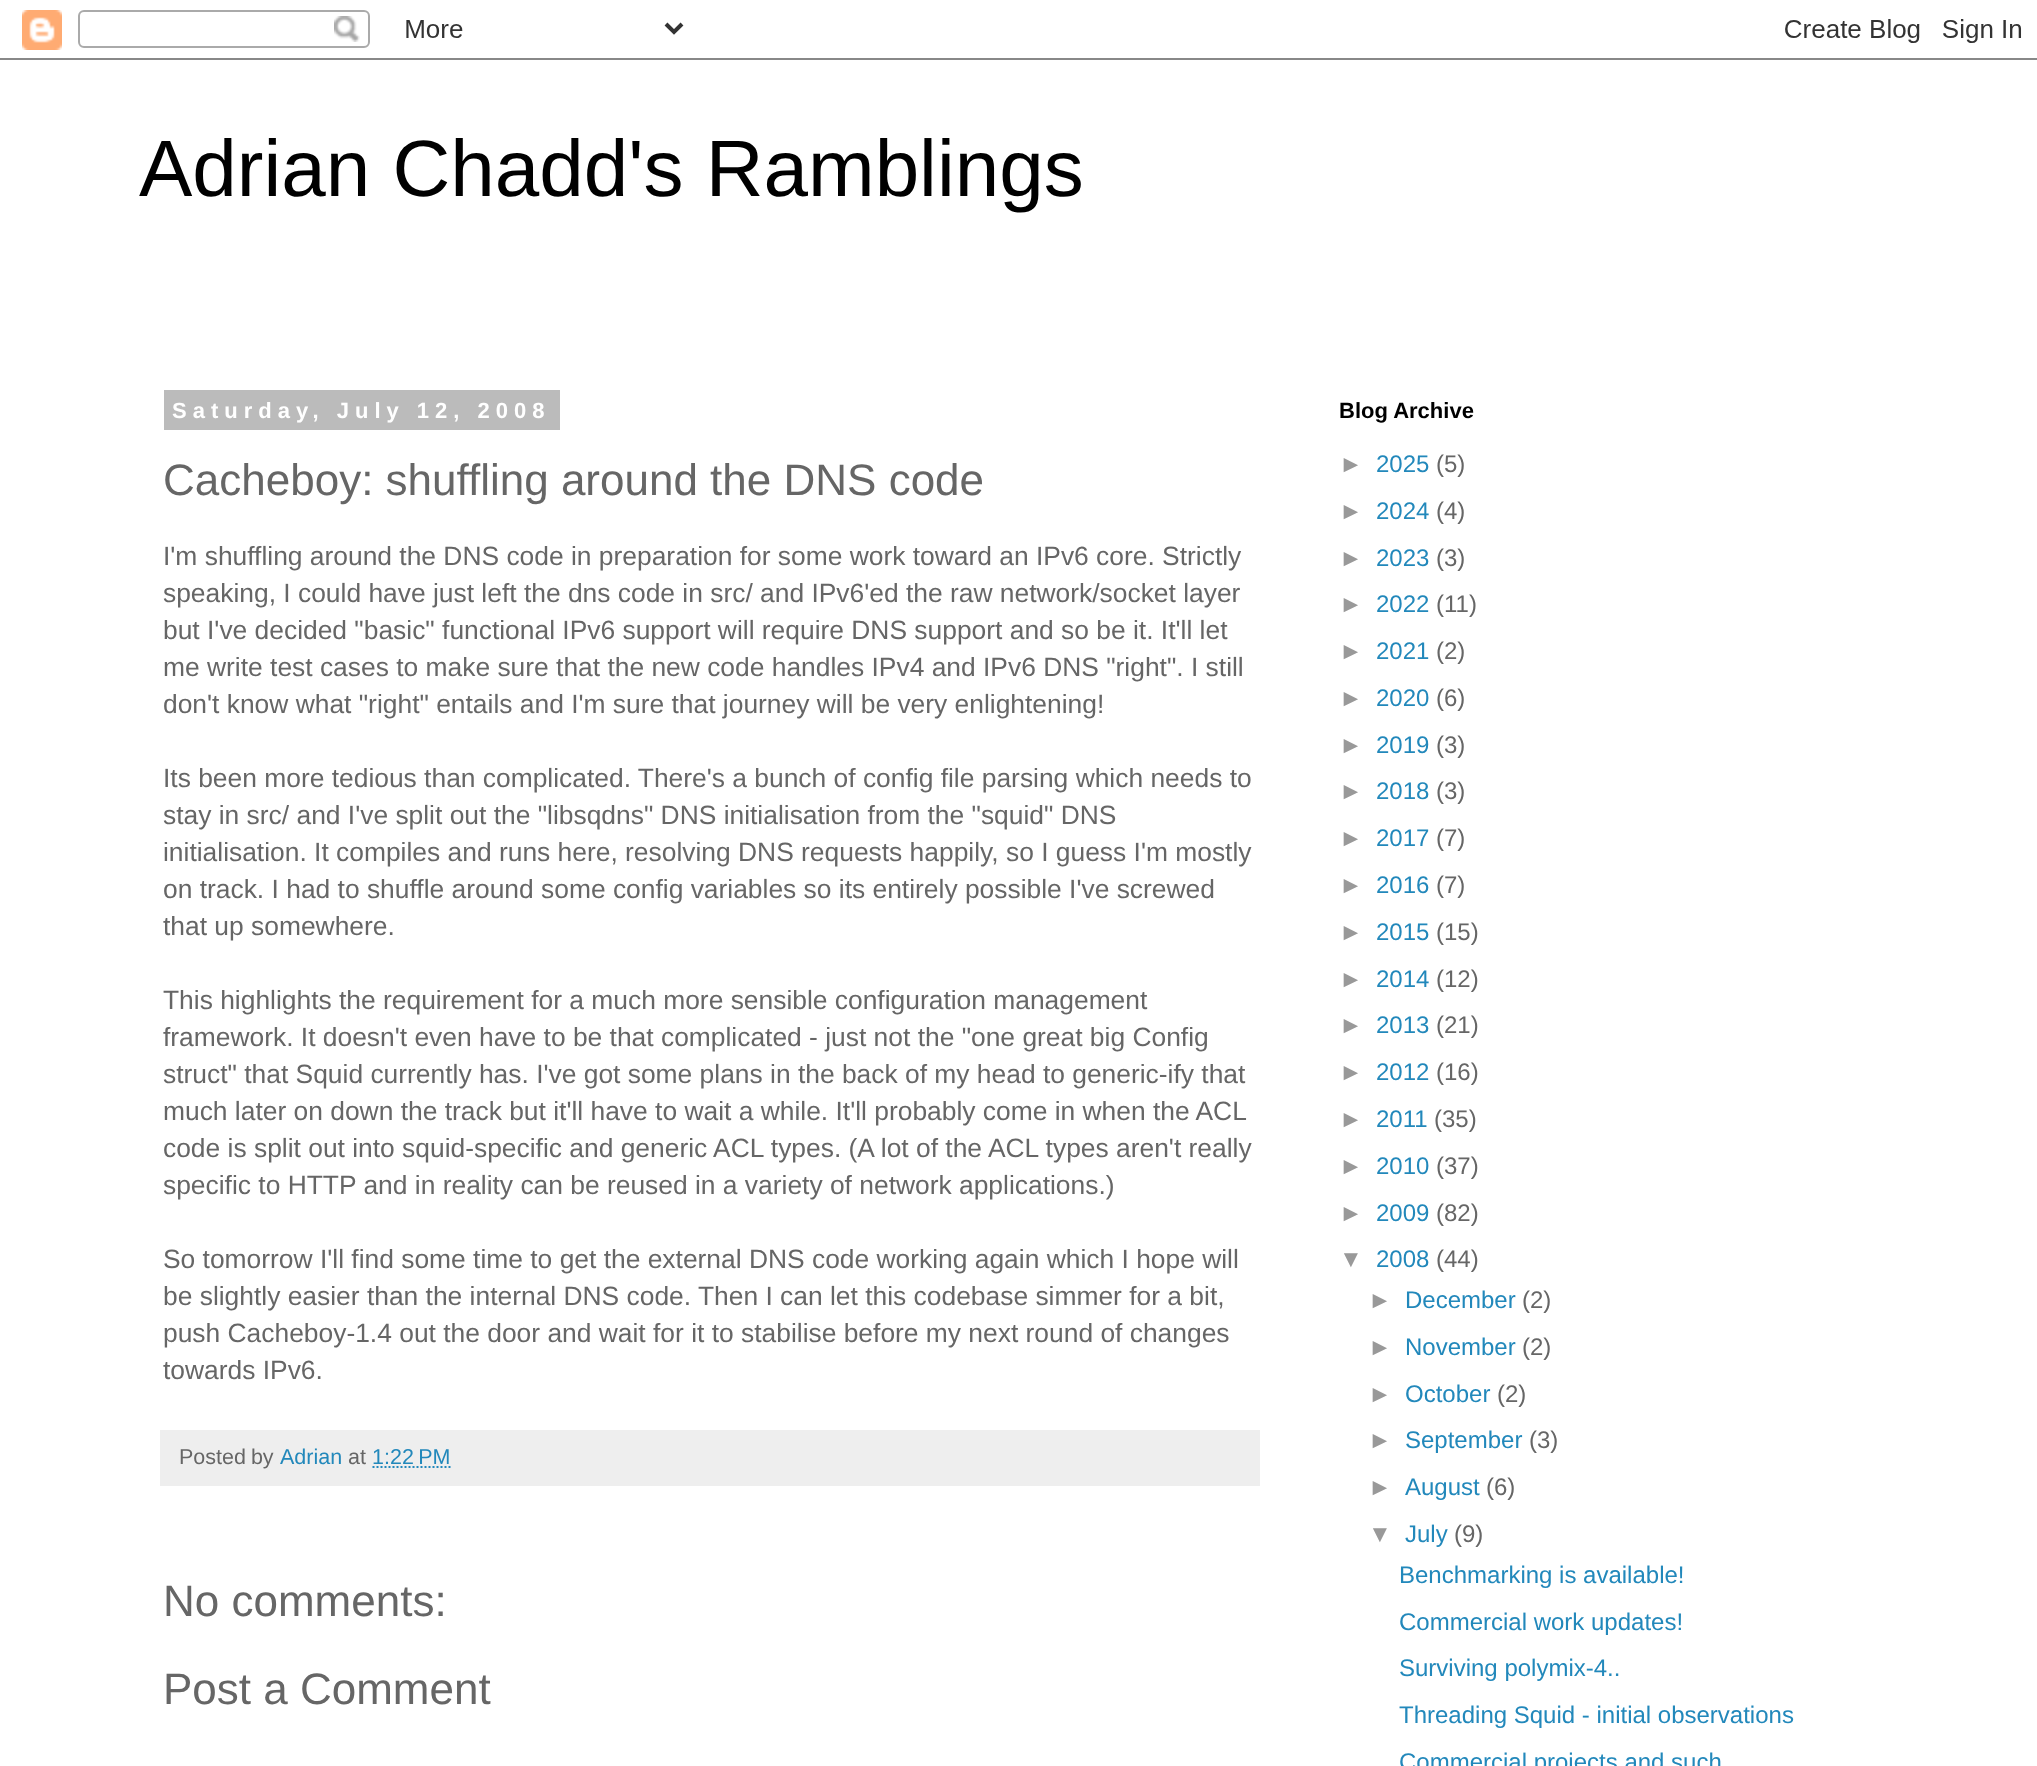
<svg xmlns="http://www.w3.org/2000/svg" width="2037" height="1766" viewBox="0 0 2037 1766">
  <rect width="100%" height="100%" fill="rgb(255,255,255)"/>
  <image x="0" y="10" width="2037" height="50" href="pic1.png"/>
  <text x="139" y="196" font-family="Liberation Sans" font-size="80" fill="rgb(0,0,0)">Adrian Chadd's Ramblings</text>
  <rect x="164" y="390" width="396" height="40" fill="rgb(187,187,187)"/>
  <text x="172" y="418" font-family="Liberation Sans" font-size="22" font-weight="bold" letter-spacing="6" fill="rgb(255,255,255)">Saturday, July 12, 2008</text>
  <text x="163" y="495" font-family="Liberation Sans" font-size="44" fill="rgb(102,102,102)">Cacheboy: shuffling around the DNS code</text>
  <g font-family="Liberation Sans" font-size="26.4" fill="rgb(102,102,102)">
    <text>
      <tspan x="163" y="565">I'm shuffling around the DNS code in preparation for some work toward an IPv6 core. Strictly</tspan>
      <tspan x="163" y="602">speaking, I could have just left the dns code in src/ and IPv6'ed the raw network/socket layer</tspan>
      <tspan x="163" y="639">but I've decided "basic" functional IPv6 support will require DNS support and so be it. It'll let</tspan>
      <tspan x="163" y="676">me write test cases to make sure that the new code handles IPv4 and IPv6 DNS "right". I still</tspan>
      <tspan x="163" y="713">don't know what "right" entails and I'm sure that journey will be very enlightening!</tspan>
    </text>
    <text>
      <tspan x="163" y="787">Its been more tedious than complicated. There's a bunch of config file parsing which needs to</tspan>
      <tspan x="163" y="824">stay in src/ and I've split out the "libsqdns" DNS initialisation from the "squid" DNS</tspan>
      <tspan x="163" y="861">initialisation. It compiles and runs here, resolving DNS requests happily, so I guess I'm mostly</tspan>
      <tspan x="163" y="898">on track. I had to shuffle around some config variables so its entirely possible I've screwed</tspan>
      <tspan x="163" y="935">that up somewhere.</tspan>
    </text>
    <text>
      <tspan x="163" y="1009">This highlights the requirement for a much more sensible configuration management</tspan>
      <tspan x="163" y="1046">framework. It doesn't even have to be that complicated - just not the "one great big Config</tspan>
      <tspan x="163" y="1083">struct" that Squid currently has. I've got some plans in the back of my head to generic-ify that</tspan>
      <tspan x="163" y="1120">much later on down the track but it'll have to wait a while. It'll probably come in when the ACL</tspan>
      <tspan x="163" y="1157">code is split out into squid-specific and generic ACL types. (A lot of the ACL types aren't really</tspan>
      <tspan x="163" y="1194">specific to HTTP and in reality can be reused in a variety of network applications.)</tspan>
    </text>
    <text>
      <tspan x="163" y="1268">So tomorrow I'll find some time to get the external DNS code working again which I hope will</tspan>
      <tspan x="163" y="1305">be slightly easier than the internal DNS code. Then I can let this codebase simmer for a bit,</tspan>
      <tspan x="163" y="1342">push Cacheboy-1.4 out the door and wait for it to stabilise before my next round of changes</tspan>
      <tspan x="163" y="1379">towards IPv6.</tspan>
    </text>
  </g>
  <rect x="160" y="1430" width="1100" height="56" fill="rgb(238,238,238)"/>
  <text x="179" y="1464" word-spacing="-1" font-family="Liberation Sans" font-size="21.5" fill="rgb(102,102,102)">Posted by</text>
  <text x="280" y="1464" font-family="Liberation Sans" font-size="21.5" fill="rgb(34,136,187)">Adrian</text>
  <text x="348" y="1464" font-family="Liberation Sans" font-size="21.5" fill="rgb(102,102,102)">at</text>
  <text x="372" y="1464" font-family="Liberation Sans" font-size="21.5" fill="rgb(34,136,187)">1:22 PM</text>
  <path d="M372.5 1467H451" fill="none" stroke="rgb(34,136,187)" stroke-width="2" stroke-dasharray="2 2"/>
  <g font-family="Liberation Sans" font-size="44" fill="rgb(102,102,102)">
    <text x="163" y="1616">No comments:</text>
    <text x="163" y="1704">Post a Comment</text>
  </g>
  <text x="1339" y="418" font-family="Liberation Sans" font-size="22" font-weight="bold" fill="rgb(0,0,0)">Blog Archive</text>
  <text x="1339" y="472" font-family="Liberation Sans" font-size="24" fill="rgb(153,153,153)">►</text>
  <text x="1376" y="472" font-family="Liberation Sans" font-size="24" fill="rgb(34,136,187)">2025</text>
  <text x="1436" y="472" font-family="Liberation Sans" font-size="24" fill="rgb(102,102,102)">(5)</text>
  <text x="1339" y="519" font-family="Liberation Sans" font-size="24" fill="rgb(153,153,153)">►</text>
  <text x="1376" y="519" font-family="Liberation Sans" font-size="24" fill="rgb(34,136,187)">2024</text>
  <text x="1436" y="519" font-family="Liberation Sans" font-size="24" fill="rgb(102,102,102)">(4)</text>
  <text x="1339" y="566" font-family="Liberation Sans" font-size="24" fill="rgb(153,153,153)">►</text>
  <text x="1376" y="566" font-family="Liberation Sans" font-size="24" fill="rgb(34,136,187)">2023</text>
  <text x="1436" y="566" font-family="Liberation Sans" font-size="24" fill="rgb(102,102,102)">(3)</text>
  <text x="1339" y="612" font-family="Liberation Sans" font-size="24" fill="rgb(153,153,153)">►</text>
  <text x="1376" y="612" font-family="Liberation Sans" font-size="24" fill="rgb(34,136,187)">2022</text>
  <text x="1436" y="612" font-family="Liberation Sans" font-size="24" fill="rgb(102,102,102)">(11)</text>
  <text x="1339" y="659" font-family="Liberation Sans" font-size="24" fill="rgb(153,153,153)">►</text>
  <text x="1376" y="659" font-family="Liberation Sans" font-size="24" fill="rgb(34,136,187)">2021</text>
  <text x="1436" y="659" font-family="Liberation Sans" font-size="24" fill="rgb(102,102,102)">(2)</text>
  <text x="1339" y="706" font-family="Liberation Sans" font-size="24" fill="rgb(153,153,153)">►</text>
  <text x="1376" y="706" font-family="Liberation Sans" font-size="24" fill="rgb(34,136,187)">2020</text>
  <text x="1436" y="706" font-family="Liberation Sans" font-size="24" fill="rgb(102,102,102)">(6)</text>
  <text x="1339" y="753" font-family="Liberation Sans" font-size="24" fill="rgb(153,153,153)">►</text>
  <text x="1376" y="753" font-family="Liberation Sans" font-size="24" fill="rgb(34,136,187)">2019</text>
  <text x="1436" y="753" font-family="Liberation Sans" font-size="24" fill="rgb(102,102,102)">(3)</text>
  <text x="1339" y="799" font-family="Liberation Sans" font-size="24" fill="rgb(153,153,153)">►</text>
  <text x="1376" y="799" font-family="Liberation Sans" font-size="24" fill="rgb(34,136,187)">2018</text>
  <text x="1436" y="799" font-family="Liberation Sans" font-size="24" fill="rgb(102,102,102)">(3)</text>
  <text x="1339" y="846" font-family="Liberation Sans" font-size="24" fill="rgb(153,153,153)">►</text>
  <text x="1376" y="846" font-family="Liberation Sans" font-size="24" fill="rgb(34,136,187)">2017</text>
  <text x="1436" y="846" font-family="Liberation Sans" font-size="24" fill="rgb(102,102,102)">(7)</text>
  <text x="1339" y="893" font-family="Liberation Sans" font-size="24" fill="rgb(153,153,153)">►</text>
  <text x="1376" y="893" font-family="Liberation Sans" font-size="24" fill="rgb(34,136,187)">2016</text>
  <text x="1436" y="893" font-family="Liberation Sans" font-size="24" fill="rgb(102,102,102)">(7)</text>
  <text x="1339" y="940" font-family="Liberation Sans" font-size="24" fill="rgb(153,153,153)">►</text>
  <text x="1376" y="940" font-family="Liberation Sans" font-size="24" fill="rgb(34,136,187)">2015</text>
  <text x="1436" y="940" font-family="Liberation Sans" font-size="24" fill="rgb(102,102,102)">(15)</text>
  <text x="1339" y="987" font-family="Liberation Sans" font-size="24" fill="rgb(153,153,153)">►</text>
  <text x="1376" y="987" font-family="Liberation Sans" font-size="24" fill="rgb(34,136,187)">2014</text>
  <text x="1436" y="987" font-family="Liberation Sans" font-size="24" fill="rgb(102,102,102)">(12)</text>
  <text x="1339" y="1033" font-family="Liberation Sans" font-size="24" fill="rgb(153,153,153)">►</text>
  <text x="1376" y="1033" font-family="Liberation Sans" font-size="24" fill="rgb(34,136,187)">2013</text>
  <text x="1436" y="1033" font-family="Liberation Sans" font-size="24" fill="rgb(102,102,102)">(21)</text>
  <text x="1339" y="1080" font-family="Liberation Sans" font-size="24" fill="rgb(153,153,153)">►</text>
  <text x="1376" y="1080" font-family="Liberation Sans" font-size="24" fill="rgb(34,136,187)">2012</text>
  <text x="1436" y="1080" font-family="Liberation Sans" font-size="24" fill="rgb(102,102,102)">(16)</text>
  <text x="1339" y="1127" font-family="Liberation Sans" font-size="24" fill="rgb(153,153,153)">►</text>
  <text x="1376" y="1127" font-family="Liberation Sans" font-size="24" fill="rgb(34,136,187)">2011</text>
  <text x="1434" y="1127" font-family="Liberation Sans" font-size="24" fill="rgb(102,102,102)">(35)</text>
  <text x="1339" y="1174" font-family="Liberation Sans" font-size="24" fill="rgb(153,153,153)">►</text>
  <text x="1376" y="1174" font-family="Liberation Sans" font-size="24" fill="rgb(34,136,187)">2010</text>
  <text x="1436" y="1174" font-family="Liberation Sans" font-size="24" fill="rgb(102,102,102)">(37)</text>
  <text x="1339" y="1221" font-family="Liberation Sans" font-size="24" fill="rgb(153,153,153)">►</text>
  <text x="1376" y="1221" font-family="Liberation Sans" font-size="24" fill="rgb(34,136,187)">2009</text>
  <text x="1436" y="1221" font-family="Liberation Sans" font-size="24" fill="rgb(102,102,102)">(82)</text>
  <text x="1339" y="1267" font-family="Liberation Sans" font-size="24" fill="rgb(153,153,153)">▼</text>
  <text x="1376" y="1267" font-family="Liberation Sans" font-size="24" fill="rgb(34,136,187)">2008</text>
  <text x="1436" y="1267" font-family="Liberation Sans" font-size="24" fill="rgb(102,102,102)">(44)</text>
  <text x="1368" y="1308" font-family="Liberation Sans" font-size="24" fill="rgb(153,153,153)">►</text>
  <text x="1405" y="1308" font-family="Liberation Sans" font-size="24" fill="rgb(34,136,187)">December</text>
  <text x="1522" y="1308" font-family="Liberation Sans" font-size="24" fill="rgb(102,102,102)">(2)</text>
  <text x="1368" y="1355" font-family="Liberation Sans" font-size="24" fill="rgb(153,153,153)">►</text>
  <text x="1405" y="1355" font-family="Liberation Sans" font-size="24" fill="rgb(34,136,187)">November</text>
  <text x="1522" y="1355" font-family="Liberation Sans" font-size="24" fill="rgb(102,102,102)">(2)</text>
  <text x="1368" y="1402" font-family="Liberation Sans" font-size="24" fill="rgb(153,153,153)">►</text>
  <text x="1405" y="1402" font-family="Liberation Sans" font-size="24" fill="rgb(34,136,187)">October</text>
  <text x="1497" y="1402" font-family="Liberation Sans" font-size="24" fill="rgb(102,102,102)">(2)</text>
  <text x="1368" y="1448" font-family="Liberation Sans" font-size="24" fill="rgb(153,153,153)">►</text>
  <text x="1405" y="1448" font-family="Liberation Sans" font-size="24" fill="rgb(34,136,187)">September</text>
  <text x="1529" y="1448" font-family="Liberation Sans" font-size="24" fill="rgb(102,102,102)">(3)</text>
  <text x="1368" y="1495" font-family="Liberation Sans" font-size="24" fill="rgb(153,153,153)">►</text>
  <text x="1405" y="1495" font-family="Liberation Sans" font-size="24" fill="rgb(34,136,187)">August</text>
  <text x="1486" y="1495" font-family="Liberation Sans" font-size="24" fill="rgb(102,102,102)">(6)</text>
  <text x="1368" y="1542" font-family="Liberation Sans" font-size="24" fill="rgb(153,153,153)">▼</text>
  <text x="1405" y="1542" font-family="Liberation Sans" font-size="24" fill="rgb(34,136,187)">July</text>
  <text x="1454" y="1542" font-family="Liberation Sans" font-size="24" fill="rgb(102,102,102)">(9)</text>
  <g font-family="Liberation Sans" font-size="24" fill="rgb(34,136,187)">
    <text>
      <tspan x="1399" y="1583">Benchmarking is available!</tspan>
      <tspan x="1399" y="1630">Commercial work updates!</tspan>
      <tspan x="1399" y="1676">Surviving polymix-4..</tspan>
      <tspan x="1399" y="1723">Threading Squid - initial observations</tspan>
      <tspan x="1399" y="1770">Commercial projects and such</tspan>
    </text>
  </g>
</svg>
